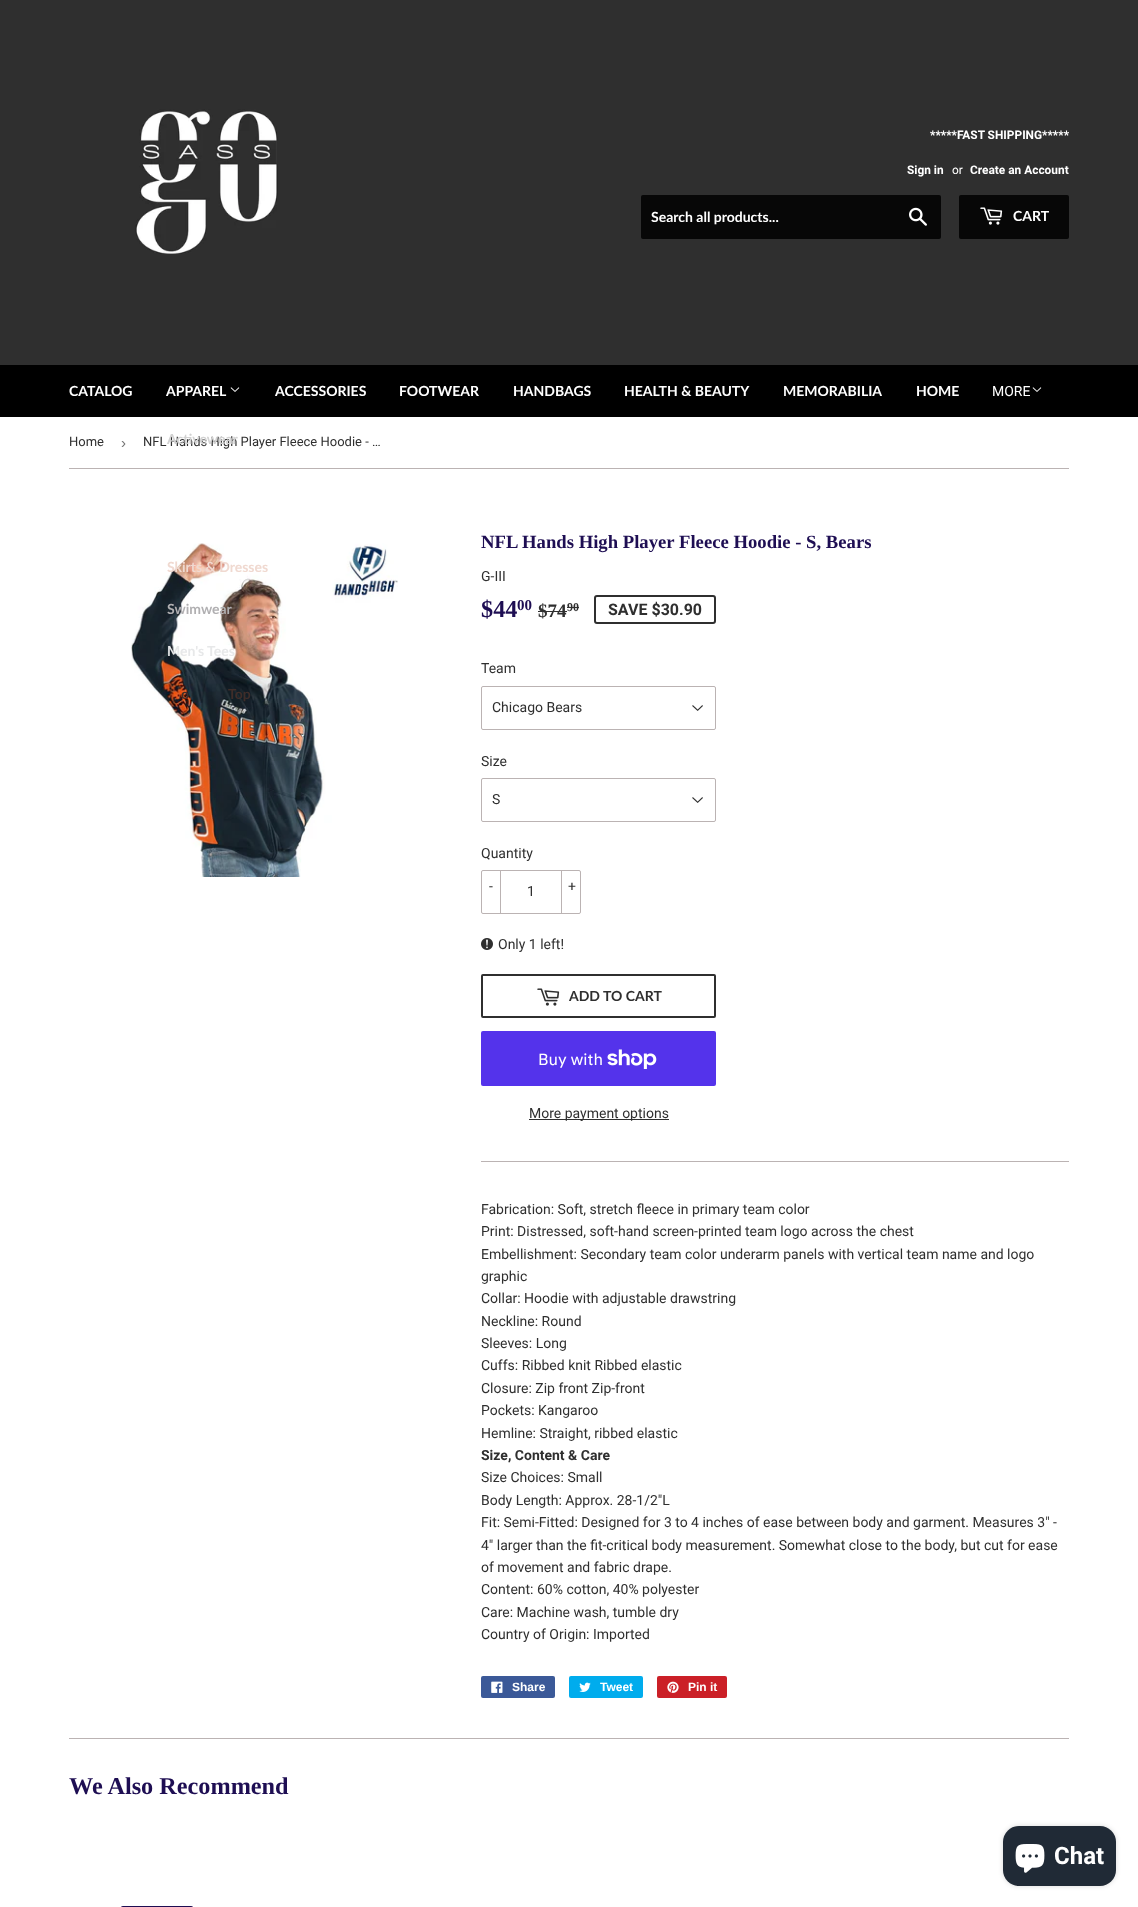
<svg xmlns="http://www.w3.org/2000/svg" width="1138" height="1907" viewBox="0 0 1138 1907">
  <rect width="100%" height="100%" fill="rgb(255,255,255)"/>
  <rect x="0" y="0" width="1138" height="365" fill="rgb(47,47,47)"/>
  <image x="135" y="109" width="143" height="145" href="pic1.png"/>
  <g font-family="Roboto" font-size="11.9" font-weight="bold" fill="rgb(255,255,255)">
    <text x="930" y="139">*****FAST SHIPPING*****</text>
    <text x="907" y="174">Sign in</text>
  </g>
  <text x="952" y="174" font-family="Roboto" font-size="11.9" fill="rgb(255,255,255)">or</text>
  <text x="970" y="174" font-family="Roboto" font-size="11.9" font-weight="bold" fill="rgb(255,255,255)">Create an Account</text>
  <rect x="641" y="195" width="300" height="44" rx="2" fill="rgb(7,7,7)"/>
  <text x="651" y="222" font-family="Lato" font-size="14" font-weight="bold" fill="rgb(255,255,255)">Search all products...</text>
  <image x="909" y="207" width="18" height="19" href="pic2.png"/>
  <rect x="959" y="195" width="110" height="44" rx="2" fill="rgb(7,7,7)"/>
  <image x="980" y="207" width="23" height="18" href="pic3.png"/>
  <text x="1013" y="221" font-family="Lato" font-size="14" font-weight="bold" fill="rgb(255,255,255)">CART</text>
  <rect x="0" y="365" width="1138" height="52" fill="rgb(0,0,0)"/>
  <g font-family="Lato" font-size="14" font-weight="bold" fill="rgb(255,255,255)">
    <text x="69" y="396">CATALOG</text>
    <text x="166" y="396">APPAREL</text>
  </g>
  <image x="230" y="387" width="10" height="5" href="pic4.png"/>
  <text x="143" y="446" font-family="Roboto" font-size="13" fill="rgb(47,47,47)">NFL Hands High Player Fleece Hoodie - …</text>
  <text x="167" y="444" font-family="Lato" font-size="14" font-weight="bold" fill="rgb(210,210,210)">Activewear</text>
  <image x="131" y="543" width="267" height="334" href="pic5.png"/>
  <text x="167" y="572" font-family="Lato" font-size="14" font-weight="bold" fill="rgb(240,217,208)">Skirts &amp; Dresses</text>
  <text x="167" y="614" font-family="Lato" font-size="14" font-weight="bold" fill="rgb(177,176,178)">Swimwear</text>
  <text x="167" y="656" font-family="Lato" font-size="14" font-weight="bold" fill="rgb(231,232,233)">Men's Tees</text>
  <g font-family="Lato" font-size="14" font-weight="bold" fill="rgb(63,45,41)">
    <text x="181" y="699">o</text>
    <text x="228" y="699">Top</text>
  </g>
  <g font-family="Lato" font-size="14" font-weight="bold" fill="rgb(255,255,255)">
    <text x="275" y="396">ACCESSORIES</text>
    <text x="399" y="396">FOOTWEAR</text>
    <text x="513" y="396">HANDBAGS</text>
    <text x="624" y="396">HEALTH &amp; BEAUTY</text>
    <text x="783" y="396">MEMORABILIA</text>
    <text x="916" y="396">HOME</text>
  </g>
  <text x="992" y="396" font-family="Roboto" font-size="14" fill="rgb(255,255,255)">MORE</text>
  <image x="1032" y="387" width="10" height="5" href="pic4.png"/>
  <rect x="69" y="468" width="1000" height="1" fill="rgb(187,179,179)"/>
  <text x="69" y="446" font-family="Roboto" font-size="13" fill="rgb(47,47,47)">Home</text>
  <text x="121" y="448" font-family="Liberation Sans" font-size="15" fill="rgb(118,118,118)">›</text>
  <text x="481" y="548" font-family="Liberation Serif" font-size="18.7" font-weight="bold" fill="rgb(30,14,83)">NFL Hands High Player Fleece Hoodie - S, Bears</text>
  <text x="481" y="581" font-family="Roboto" font-size="14" fill="rgb(47,47,47)">G-III</text>
  <text x="481" y="617" font-family="Liberation Serif" font-size="24.25" font-weight="bold" fill="rgb(30,14,83)">$44</text>
  <text x="517" y="610" font-family="Liberation Serif" font-size="15" font-weight="bold" fill="rgb(30,14,83)">00</text>
  <text x="538" y="617" font-family="Liberation Serif" font-size="19" font-weight="bold" fill="rgb(47,47,47)">$74</text>
  <rect x="538" y="611" width="29" height="1" fill="rgb(47,47,47)"/>
  <text x="567" y="611" font-family="Liberation Serif" font-size="12" font-weight="bold" fill="rgb(47,47,47)">90</text>
  <rect x="567" y="607" width="12" height="1" fill="rgb(47,47,47)"/>
  <rect x="595" y="596" width="120" height="27" rx="2" fill="none" stroke="rgb(47,47,47)" stroke-width="2"/>
  <text x="608" y="615" font-family="Roboto" font-size="16" font-weight="bold" fill="rgb(47,47,47)">SAVE $30.90</text>
  <text x="481" y="673" font-family="Roboto" font-size="14" fill="rgb(47,47,47)">Team</text>
  <image x="692" y="705" width="11" height="6" href="pic6.png"/>
  <rect x="481.5" y="686.5" width="234" height="43" rx="1.5" fill="none" stroke="rgb(187,179,179)"/>
  <g font-family="Roboto" font-size="14" fill="rgb(47,47,47)">
    <text x="492" y="712">Chicago Bears</text>
    <text x="481" y="766">Size</text>
  </g>
  <image x="692" y="797" width="11" height="6" href="pic6.png"/>
  <rect x="481.5" y="778.5" width="234" height="43" rx="1.5" fill="none" stroke="rgb(187,179,179)"/>
  <g font-family="Roboto" font-size="14" fill="rgb(47,47,47)">
    <text x="492" y="804">S</text>
    <text x="481" y="858">Quantity</text>
  </g>
  <rect x="481.5" y="870.5" width="99" height="43" rx="1.5" fill="none" stroke="rgb(187,179,179)"/>
  <rect x="500" y="870" width="1" height="44" fill="rgb(187,179,179)"/>
  <g font-family="Roboto" font-size="14" fill="rgb(47,47,47)">
    <text x="489" y="891">-</text>
    <text x="527" y="896">1</text>
  </g>
  <rect x="561" y="870" width="1" height="44" fill="rgb(187,179,179)"/>
  <text x="568" y="891" font-family="Roboto" font-size="14" fill="rgb(47,47,47)">+</text>
  <image x="481" y="938" width="12" height="12" href="pic7.png"/>
  <text x="498" y="949" font-family="Roboto" font-size="14" fill="rgb(47,47,47)">Only 1 left!</text>
  <rect x="482" y="975" width="233" height="42" rx="1" fill="none" stroke="rgb(47,47,47)" stroke-width="2"/>
  <image x="537" y="988" width="23" height="18" href="pic8.png"/>
  <text x="569" y="1001" font-family="Lato" font-size="14" font-weight="bold" fill="rgb(47,47,47)">ADD TO CART</text>
  <rect x="481" y="1031" width="235" height="55" rx="2" fill="rgb(84,51,235)"/>
  <text x="538" y="1065" font-family="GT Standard" font-size="16" fill="rgb(255,255,255)">Buy with</text>
  <image x="607" y="1049" width="50" height="20" href="pic9.png"/>
  <rect x="529" y="1119" width="140" height="1" fill="rgb(47,47,47)"/>
  <text x="529" y="1118" font-family="Roboto" font-size="14" fill="rgb(47,47,47)">More payment options</text>
  <rect x="481" y="1161" width="588" height="1" fill="rgb(187,179,179)"/>
  <g font-family="Roboto" font-size="14" fill="rgb(47,47,47)">
    <text>
      <tspan x="481" y="1214">Fabrication: Soft, stretch fleece in primary team color</tspan>
      <tspan x="481" y="1236">Print: Distressed, soft-hand screen-printed team logo across the chest</tspan>
      <tspan x="481" y="1259">Embellishment: Secondary team color underarm panels with vertical team name and logo</tspan>
      <tspan x="481" y="1281">graphic</tspan>
      <tspan x="481" y="1303">Collar: Hoodie with adjustable drawstring</tspan>
      <tspan x="481" y="1326">Neckline: Round</tspan>
      <tspan x="481" y="1348">Sleeves: Long</tspan>
      <tspan x="481" y="1370">Cuffs: Ribbed knit Ribbed elastic</tspan>
      <tspan x="481" y="1393">Closure: Zip front Zip-front</tspan>
      <tspan x="481" y="1415">Pockets: Kangaroo</tspan>
      <tspan x="481" y="1438">Hemline: Straight, ribbed elastic</tspan>
    </text>
  </g>
  <text x="481" y="1460" font-family="Roboto" font-size="14" font-weight="bold" fill="rgb(47,47,47)">Size, Content &amp; Care</text>
  <g font-family="Roboto" font-size="14" fill="rgb(47,47,47)">
    <text>
      <tspan x="481" y="1482">Size Choices: Small</tspan>
      <tspan x="481" y="1505">Body Length: Approx. 28-1/2"L</tspan>
      <tspan x="481" y="1527">Fit: Semi-Fitted: Designed for 3 to 4 inches of ease between body and garment. Measures 3" -</tspan>
      <tspan x="481" y="1550">4" larger than the fit-critical body measurement. Somewhat close to the body, but cut for ease</tspan>
      <tspan x="481" y="1572">of movement and fabric drape.</tspan>
      <tspan x="481" y="1594">Content: 60% cotton, 40% polyester</tspan>
      <tspan x="481" y="1617">Care: Machine wash, tumble dry</tspan>
      <tspan x="481" y="1639">Country of Origin: Imported</tspan>
    </text>
  </g>
  <rect x="481" y="1676" width="74" height="22" rx="2" fill="rgb(59,89,152)"/>
  <image x="491" y="1681" width="12" height="12" href="pic10.png"/>
  <text x="512" y="1691" font-family="Liberation Sans" font-size="12" font-weight="bold" fill="rgb(255,255,255)">Share</text>
  <rect x="569" y="1676" width="74" height="22" rx="2" fill="rgb(0,172,237)"/>
  <image x="579" y="1682" width="12" height="10" href="pic11.png"/>
  <text x="600" y="1691" font-family="Liberation Sans" font-size="12" font-weight="bold" fill="rgb(255,255,255)">Tweet</text>
  <rect x="657" y="1676" width="70" height="22" rx="2" fill="rgb(203,32,39)"/>
  <image x="667" y="1681" width="12" height="12" href="pic12.png"/>
  <text x="688" y="1691" font-family="Liberation Sans" font-size="12" font-weight="bold" fill="rgb(255,255,255)">Pin it</text>
  <rect x="69" y="1738" width="1000" height="1" fill="rgb(187,179,179)"/>
  <text x="69" y="1794" font-family="Liberation Serif" font-size="24.25" font-weight="bold" fill="rgb(30,14,83)">We Also Recommend</text>
  <rect x="121" y="1906" width="72" height="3" rx="2" fill="rgb(30,14,83)"/>
  <rect x="1003" y="1826" width="113" height="60" rx="16" fill="rgba(0,0,0,0.15)" filter="blur(2.5px)"/>
  <rect x="1003" y="1826" width="113" height="60" rx="16" fill="rgb(32,42,54)"/>
  <image x="1015" y="1844" width="30" height="29" href="pic13.png"/>
  <text x="1054" y="1864" font-family="Roboto" font-size="24" font-weight="bold" fill="rgb(255,255,255)">Chat</text>
</svg>
